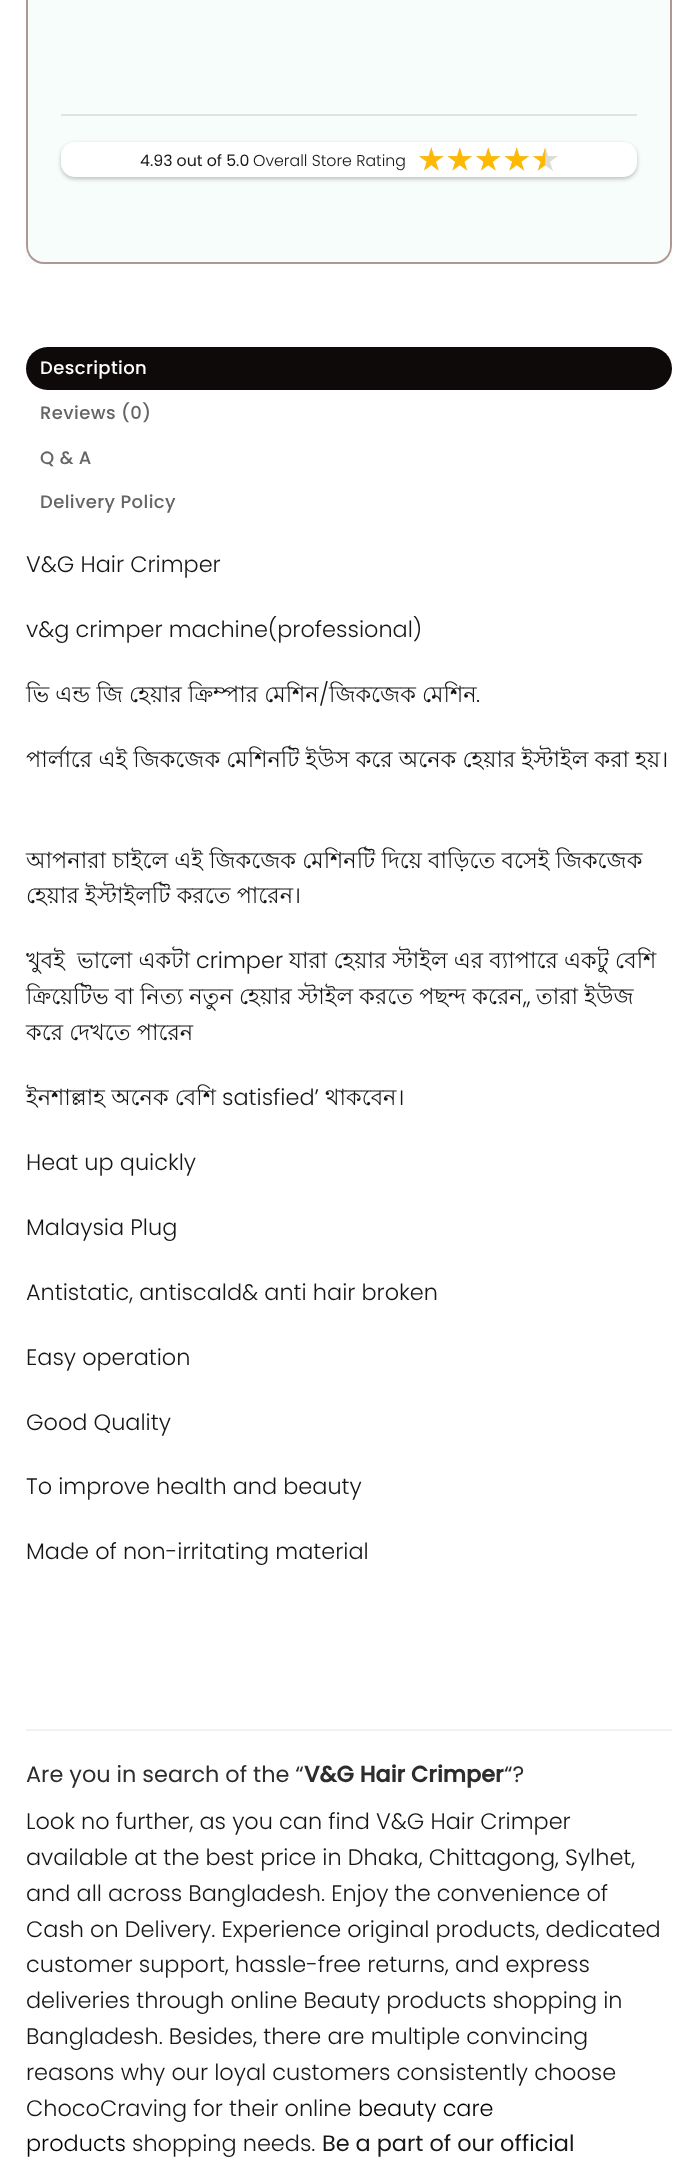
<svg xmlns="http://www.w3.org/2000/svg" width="698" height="2162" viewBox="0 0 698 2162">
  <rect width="100%" height="100%" fill="rgb(255,255,255)"/>
  <rect x="26" y="0" width="646" height="264" fill="rgb(247,253,250)"/>
  <rect x="61" y="114" width="576" height="2" fill="rgb(222,228,225)"/>
  <rect x="27" y="-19" width="644" height="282" rx="17" fill="none" stroke="rgb(177,150,150)" stroke-width="2"/>
  <rect x="61" y="144" width="576" height="35" rx="14" fill="rgba(0,0,0,0.24)" filter="blur(2px)"/>
  <rect x="61" y="142" width="576" height="35" rx="14" fill="rgb(255,255,255)"/>
  <text x="140" y="166" font-family="Poppins" font-size="15.75" fill="rgb(22,22,22)">4.93 out of 5.0</text>
  <text x="253" y="166" font-family="Poppins" font-size="15.75" font-weight="300" fill="rgb(22,22,22)">Overall Store Rating</text>
  <image x="419" y="147" width="139" height="24" href="pic1.png"/>
  <rect x="26" y="347" width="646" height="43" rx="21.5" fill="rgb(14,10,10)"/>
  <text x="40" y="374" font-family="Poppins" font-size="18" font-weight="500" letter-spacing="0.4" fill="rgb(255,255,255)">Description</text>
  <g font-family="Poppins" font-size="18" font-weight="500" letter-spacing="0.4" fill="rgb(101,101,101)">
    <text x="40" y="419">Reviews (0)</text>
    <text x="40" y="464">Q &amp; A</text>
    <text x="40" y="508">Delivery Policy</text>
  </g>
  <g font-family="Poppins" font-size="22.4" font-weight="300" fill="rgb(22,22,22)">
    <text x="26" y="572">V&amp;G Hair Crimper</text>
    <text x="26" y="637">v&amp;g crimper machine(professional)</text>
  </g>
  <text x="26" y="702" font-family="Lohit Bengali" font-size="22.4" fill="rgb(22,22,22)">ভি এন্ড জি হেয়ার ক্রিম্পার মেশিন</text>
  <text x="319" y="702" font-family="Poppins" font-size="22.4" font-weight="300" fill="rgb(22,22,22)">/</text>
  <text x="329" y="702" font-family="Lohit Bengali" font-size="22.4" fill="rgb(22,22,22)">জিকজেক মেশিন</text>
  <text x="476" y="702" font-family="Poppins" font-size="22.4" font-weight="300" fill="rgb(22,22,22)">.</text>
  <g font-family="Lohit Bengali" font-size="22.4" fill="rgb(22,22,22)">
    <text x="26" y="767">পার্লারে এই জিকজেক মেশিনটি ইউস করে অনেক হেয়ার ইস্টাইল করা হয়।</text>
    <text>
      <tspan x="26" y="868">আপনারা চাইলে এই জিকজেক মেশিনটি দিয়ে বাড়িতে বসেই জিকজেক</tspan>
      <tspan x="26" y="903">হেয়ার ইস্টাইলটি করতে পারেন।</tspan>
    </text>
    <text x="26" y="968">খুবই</text>
    <text x="77" y="968">ভালো একটা</text>
  </g>
  <text x="196" y="968" font-family="Poppins" font-size="22.4" font-weight="300" fill="rgb(22,22,22)">crimper</text>
  <g font-family="Lohit Bengali" font-size="22.4" fill="rgb(22,22,22)">
    <text x="289" y="968">যারা হেয়ার স্টাইল এর ব্যাপারে একটু বেশি</text>
    <text x="26" y="1004">ক্রিয়েটিভ বা নিত্য নতুন হেয়ার স্টাইল করতে পছন্দ করেন</text>
  </g>
  <text x="523" y="1004" font-family="Poppins" font-size="22.4" font-weight="300" fill="rgb(22,22,22)">,,</text>
  <g font-family="Lohit Bengali" font-size="22.4" fill="rgb(22,22,22)">
    <text x="536" y="1004">তারা ইউজ</text>
    <text x="26" y="1040">করে দেখতে পারেন</text>
    <text x="26" y="1105">ইনশাল্লাহ অনেক বেশি</text>
  </g>
  <text x="222" y="1105" font-family="Poppins" font-size="22.4" font-weight="300" fill="rgb(22,22,22)">satisfied’</text>
  <text x="325" y="1105" font-family="Lohit Bengali" font-size="22.4" fill="rgb(22,22,22)">থাকবেন।</text>
  <g font-family="Poppins" font-size="22.4" font-weight="300" fill="rgb(22,22,22)">
    <text x="26" y="1170">Heat up quickly</text>
    <text x="26" y="1235">Malaysia Plug</text>
    <text x="26" y="1300">Antistatic, antiscald&amp; anti hair broken</text>
    <text x="26" y="1365">Easy operation</text>
    <text x="26" y="1430">Good Quality</text>
    <text x="26" y="1494">To improve health and beauty</text>
    <text x="26" y="1559">Made of non-irritating material</text>
  </g>
  <rect x="26" y="1729" width="646" height="2" fill="rgb(242,242,242)"/>
  <text x="26" y="1782" font-family="Poppins" font-size="22.4" fill="rgb(46,44,44)">Are you in search of the “</text>
  <text x="304" y="1782" font-family="Poppins" font-size="22.4" font-weight="bold" fill="rgb(46,44,44)">V&amp;G Hair Crimper</text>
  <text x="504" y="1782" font-family="Poppins" font-size="22.4" fill="rgb(46,44,44)">“?</text>
  <g font-family="Poppins" font-size="22.4" font-weight="300" fill="rgb(22,22,22)">
    <text>
      <tspan x="26" y="1829">Look no further, as you can find V&amp;G Hair Crimper</tspan>
      <tspan x="26" y="1865">available at the best price in Dhaka, Chittagong, Sylhet,</tspan>
      <tspan x="26" y="1901">and all across Bangladesh. Enjoy the convenience of</tspan>
      <tspan x="26" y="1937">Cash on Delivery. Experience original products, dedicated</tspan>
      <tspan x="26" y="1972">customer support, hassle-free returns, and express</tspan>
      <tspan x="26" y="2008">deliveries through online Beauty products shopping in</tspan>
      <tspan x="26" y="2044">Bangladesh. Besides, there are multiple convincing</tspan>
      <tspan x="26" y="2080">reasons why our loyal customers consistently choose</tspan>
      <tspan x="26" y="2116">ChocoCraving for their online</tspan>
    </text>
  </g>
  <g font-family="Poppins" font-size="22.4" font-weight="300" fill="rgb(0,0,0)">
    <text x="358" y="2116">beauty care</text>
    <text x="26" y="2151">products</text>
  </g>
  <text x="132" y="2151" font-family="Poppins" font-size="22.4" font-weight="300" fill="rgb(22,22,22)">shopping needs.</text>
  <text x="322" y="2151" font-family="Poppins" font-size="22.4" fill="rgb(22,22,22)">Be a part of our official</text>
</svg>
